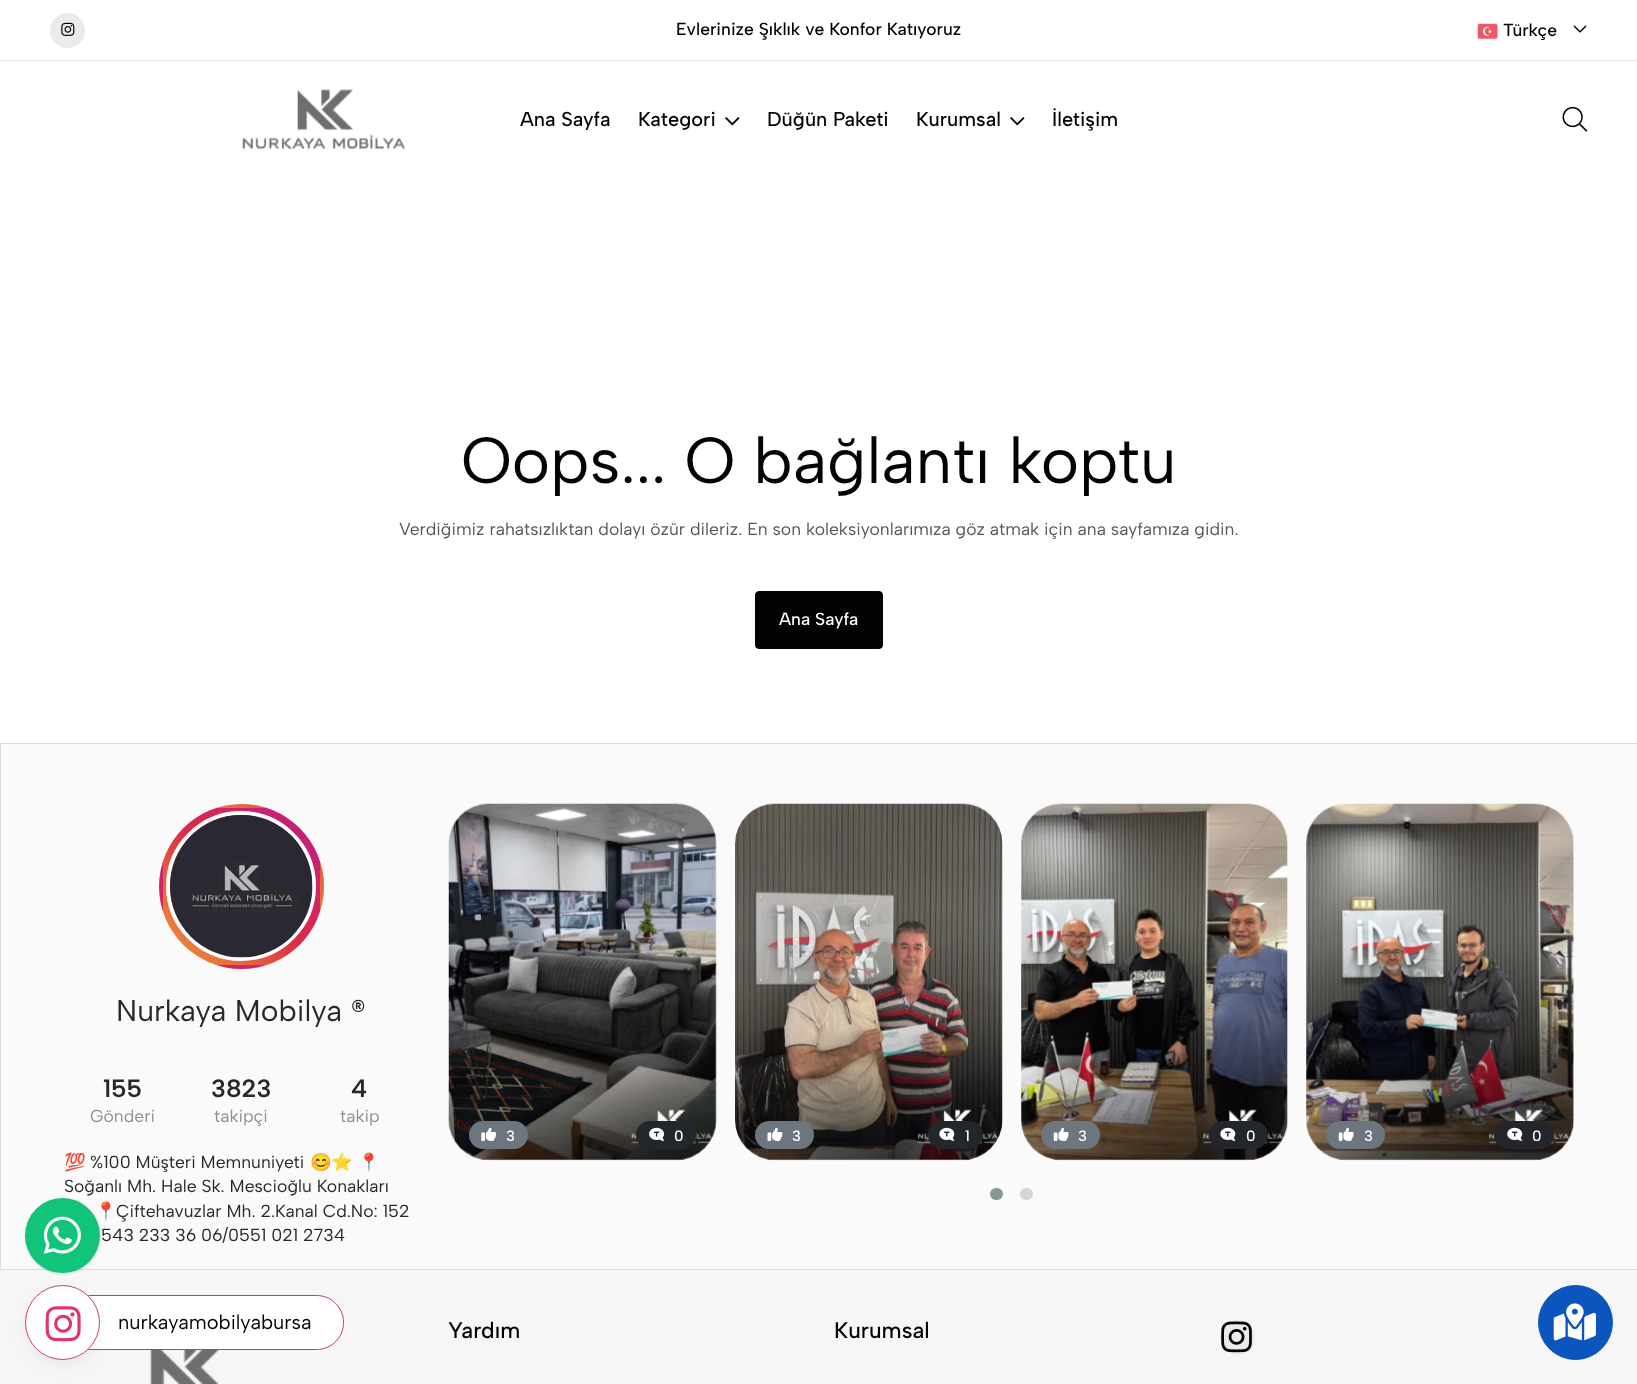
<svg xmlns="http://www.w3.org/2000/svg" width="1637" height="1384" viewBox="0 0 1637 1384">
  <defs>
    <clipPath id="clip1"><rect x="159" y="804" width="165" height="165" rx="82.5"/></clipPath>
    <linearGradient id="g1" gradientUnits="userSpaceOnUse" x1="163" y1="808" x2="320" y2="650"><stop offset="0" stop-color="rgb(240,149,53)"/><stop offset="0.25" stop-color="rgb(230,106,62)"/><stop offset="0.5" stop-color="rgb(220,41,69)"/><stop offset="0.75" stop-color="rgb(205,37,104)"/><stop offset="1" stop-color="rgb(189,26,137)"/></linearGradient>
    <linearGradient id="g2" gradientUnits="userSpaceOnUse" x1="5" y1="965" x2="163" y2="808"><stop offset="0" stop-color="rgb(240,149,53)"/><stop offset="0.25" stop-color="rgb(230,106,62)"/><stop offset="0.5" stop-color="rgb(220,41,69)"/><stop offset="0.75" stop-color="rgb(205,37,104)"/><stop offset="1" stop-color="rgb(189,26,137)"/></linearGradient>
    <linearGradient id="g3" gradientUnits="userSpaceOnUse" x1="163" y1="965" x2="320" y2="808"><stop offset="0" stop-color="rgb(240,149,53)"/><stop offset="0.25" stop-color="rgb(230,106,62)"/><stop offset="0.5" stop-color="rgb(220,41,69)"/><stop offset="0.75" stop-color="rgb(205,37,104)"/><stop offset="1" stop-color="rgb(189,26,137)"/></linearGradient>
    <linearGradient id="g4" gradientUnits="userSpaceOnUse" x1="320" y1="965" x2="478" y2="808"><stop offset="0" stop-color="rgb(240,149,53)"/><stop offset="0.25" stop-color="rgb(230,106,62)"/><stop offset="0.5" stop-color="rgb(220,41,69)"/><stop offset="0.75" stop-color="rgb(205,37,104)"/><stop offset="1" stop-color="rgb(189,26,137)"/></linearGradient>
    <linearGradient id="g5" gradientUnits="userSpaceOnUse" x1="163" y1="1123" x2="320" y2="965"><stop offset="0" stop-color="rgb(240,149,53)"/><stop offset="0.25" stop-color="rgb(230,106,62)"/><stop offset="0.5" stop-color="rgb(220,41,69)"/><stop offset="0.75" stop-color="rgb(205,37,104)"/><stop offset="1" stop-color="rgb(189,26,137)"/></linearGradient>
    <clipPath id="clip2"><path d="M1 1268H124V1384H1ZM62.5 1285C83 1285 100 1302 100 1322.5C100 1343 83 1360 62.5 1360C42 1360 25 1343 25 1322.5C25 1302 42 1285 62.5 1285Z" clip-rule="evenodd"/></clipPath>
  </defs>
  <rect width="100%" height="100%" fill="rgb(255,255,255)"/>
  <rect x="0.5" y="743.5" width="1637" height="526" fill="rgb(250,250,250)" stroke="rgb(219,219,219)"/>
  <rect x="0" y="1270" width="1637" height="114" fill="rgb(246,246,246)"/>
  <rect x="25" y="1199" width="75" height="75" rx="37.5" fill="rgba(3,3,3,0.15)" filter="blur(1px)"/>
  <text x="95" y="1217" font-family="Noto Color Emoji" font-size="17.5" fill="rgb(40,40,40)">📍</text>
  <circle cx="62.5" cy="1235.5" r="37.5" fill="rgb(18,196,122)"/>
  <image x="43" y="1216" width="38" height="38" href="pic1.png"/>
  <rect x="0" y="60" width="1637" height="1" fill="rgb(235,235,235)"/>
  <circle cx="67.5" cy="30.5" r="17.5" fill="rgb(235,235,235)"/>
  <image x="61" y="22" width="14" height="14" href="pic2.png"/>
  <text x="676" y="35" font-family="Albert Sans" font-size="17.5" font-weight="500" fill="rgb(3,3,3)">Evlerinize Şıklık ve Konfor Katıyoruz</text>
  <image x="1477" y="23" width="21" height="16" href="pic3.png"/>
  <text x="1503" y="36" font-family="Albert Sans" font-size="17.5" font-weight="500" fill="rgb(3,3,3)">Türkçe</text>
  <image x="1573" y="25" width="14" height="8" href="pic4.png"/>
  <image x="242" y="89" width="163" height="61" href="pic5.png"/>
  <g font-family="Albert Sans" font-size="20" font-weight="500" fill="rgb(3,3,3)">
    <text x="520" y="126">Ana Sayfa</text>
    <text x="638" y="126">Kategori</text>
  </g>
  <image x="725" y="117" width="15" height="9" href="pic6.png"/>
  <g font-family="Albert Sans" font-size="20" font-weight="500" fill="rgb(3,3,3)">
    <text x="767" y="126">Düğün Paketi</text>
    <text x="916" y="126">Kurumsal</text>
  </g>
  <image x="1010" y="117" width="15" height="9" href="pic6.png"/>
  <text x="1052" y="126" font-family="Albert Sans" font-size="20" font-weight="500" fill="rgb(3,3,3)">İletişim</text>
  <image x="1562" y="106" width="26" height="26" href="pic7.png"/>
  <text x="461" y="483" font-family="Albert Sans" font-size="65" fill="rgb(3,3,3)">Oops... O bağlantı koptu</text>
  <text x="399" y="535" font-family="Albert Sans" font-size="17.5" fill="rgb(86,86,86)">Verdiğimiz rahatsızlıktan dolayı özür dileriz. En son koleksiyonlarımıza göz atmak için ana sayfamıza gidin.</text>
  <rect x="755.5" y="591.5" width="127" height="57" rx="3.5" fill="rgb(3,3,3)" stroke="rgb(3,3,3)"/>
  <text x="779" y="625" font-family="Albert Sans" font-size="17.5" font-weight="500" fill="rgb(255,255,255)">Ana Sayfa</text>
  <g clip-path="url(#clip1)">
    <rect x="216" y="804" width="51" height="4" fill="url(#g1)"/>
    <rect x="159" y="861" width="4" height="51" fill="url(#g2)"/>
    <rect x="163" y="808" width="157" height="157" fill="url(#g3)"/>
    <rect x="320" y="861" width="4" height="51" fill="url(#g4)"/>
    <rect x="216" y="965" width="51" height="4" fill="url(#g5)"/>
  </g>
  <circle cx="241" cy="886" r="73" fill="none" stroke="rgb(255,255,255)" stroke-width="4"/>
  <image x="170" y="815" width="143" height="143" href="pic8.png"/>
  <text x="116" y="1021" font-family="Albert Sans" font-size="30" fill="rgb(40,40,40)">Nurkaya Mobilya ®</text>
  <text x="103" y="1097" font-family="Albert Sans" font-size="25" font-weight="600" fill="rgb(40,40,40)">155</text>
  <text x="90" y="1122" font-family="Albert Sans" font-size="17.5" fill="rgb(143,143,143)">Gönderi</text>
  <text x="211" y="1097" font-family="Albert Sans" font-size="25" font-weight="600" fill="rgb(40,40,40)">3823</text>
  <text x="214" y="1122" font-family="Albert Sans" font-size="17.5" fill="rgb(143,143,143)">takipçi</text>
  <text x="351" y="1097" font-family="Albert Sans" font-size="25" font-weight="600" fill="rgb(40,40,40)">4</text>
  <text x="340" y="1122" font-family="Albert Sans" font-size="17.5" fill="rgb(143,143,143)">takip</text>
  <text x="64" y="1168" font-family="Noto Color Emoji" font-size="17.5" fill="rgb(40,40,40)">💯</text>
  <text x="90" y="1168" font-family="Albert Sans" font-size="17.5" fill="rgb(40,40,40)">%100 Müşteri Memnuniyeti</text>
  <g font-family="Noto Color Emoji" font-size="17.5" fill="rgb(40,40,40)">
    <text x="310" y="1168">😊⭐</text>
    <text x="358" y="1168">📍</text>
  </g>
  <g font-family="Albert Sans" font-size="17.5" fill="rgb(40,40,40)">
    <text x="64" y="1192">Soğanlı Mh. Hale Sk. Mescioğlu Konakları</text>
    <text x="116" y="1217">Çiftehavuzlar Mh. 2.Kanal Cd.No: 152</text>
    <text x="101" y="1241">543 233 36 06/0551 021 2734</text>
  </g>
  <image x="448" y="803" width="269" height="358" href="pic9.png"/>
  <rect x="469" y="1121" width="59" height="28" rx="14" fill="rgb(109,118,126)"/>
  <image x="481" y="1127" width="16" height="14" href="pic10.png"/>
  <text x="506" y="1141" font-family="Albert Sans" font-size="15" font-weight="500" fill="rgb(255,255,255)">3</text>
  <rect x="636" y="1121" width="60" height="28" rx="14" fill="rgb(35,39,43)"/>
  <image x="649" y="1127" width="15" height="14" href="pic11.png"/>
  <text x="674" y="1141" font-family="Albert Sans" font-size="15" font-weight="500" fill="rgb(255,255,255)">0</text>
  <image x="735" y="803" width="268" height="358" href="pic12.png"/>
  <rect x="755" y="1121" width="59" height="28" rx="14" fill="rgb(109,118,126)"/>
  <image x="767" y="1127" width="16" height="14" href="pic13.png"/>
  <text x="792" y="1141" font-family="Albert Sans" font-size="15" font-weight="500" fill="rgb(255,255,255)">3</text>
  <rect x="928" y="1121" width="55" height="28" rx="14" fill="rgb(35,39,43)"/>
  <image x="939" y="1127" width="16" height="14" href="pic14.png"/>
  <text x="965" y="1141" font-family="Albert Sans" font-size="15" font-weight="500" fill="rgb(255,255,255)">1</text>
  <image x="1021" y="803" width="267" height="358" href="pic15.png"/>
  <rect x="1041" y="1121" width="59" height="28" rx="14" fill="rgb(109,118,126)"/>
  <image x="1053" y="1127" width="16" height="14" href="pic16.png"/>
  <text x="1078" y="1141" font-family="Albert Sans" font-size="15" font-weight="500" fill="rgb(255,255,255)">3</text>
  <rect x="1209" y="1121" width="59" height="28" rx="14" fill="rgb(35,39,43)"/>
  <image x="1220" y="1127" width="16" height="14" href="pic17.png"/>
  <text x="1246" y="1141" font-family="Albert Sans" font-size="15" font-weight="500" fill="rgb(255,255,255)">0</text>
  <image x="1306" y="803" width="268" height="358" href="pic18.png"/>
  <rect x="1326" y="1121" width="59" height="28" rx="14" fill="rgb(109,118,126)"/>
  <image x="1338" y="1127" width="16" height="14" href="pic16.png"/>
  <text x="1364" y="1141" font-family="Albert Sans" font-size="15" font-weight="500" fill="rgb(255,255,255)">3</text>
  <rect x="1494" y="1121" width="60" height="28" rx="14" fill="rgb(35,39,43)"/>
  <image x="1507" y="1127" width="16" height="14" href="pic19.png"/>
  <text x="1532" y="1141" font-family="Albert Sans" font-size="15" font-weight="500" fill="rgb(255,255,255)">0</text>
  <rect x="990" y="1188" width="13" height="12" rx="6" fill="rgb(135,152,146)"/>
  <rect x="1020" y="1188" width="13" height="12" rx="6" fill="rgb(214,214,214)"/>
  <g font-family="Albert Sans" font-size="22.5" font-weight="500" fill="rgb(3,3,3)">
    <text x="448" y="1338">Yardım</text>
    <text x="834" y="1338">Kurumsal</text>
  </g>
  <circle cx="1237.5" cy="1337.5" r="17.5" fill="rgb(235,235,235)"/>
  <image x="1221" y="1321" width="31" height="32" href="pic20.png"/>
  <image x="150" y="1350" width="69" height="34" href="pic21.png"/>
  <path d="M85.5 1295.5H316.5C331.5 1295.5 343.5 1307.5 343.5 1322.5C343.5 1337.5 331.5 1349.5 316.5 1349.5H85.5Z" fill="rgb(255,255,255)" stroke="rgb(194,55,133)"/>
  <g clip-path="url(#clip2)">
    <rect x="31" y="1298" width="63" height="62" rx="31" fill="rgba(3,3,3,0.1)" filter="blur(9.5px)"/>
  </g>
  <circle cx="62.5" cy="1322.5" r="37.5" fill="rgba(255,255,255,0.99)"/>
  <circle cx="62.5" cy="1322.5" r="37" fill="none" stroke="rgba(194,55,133,0.99)"/>
  <image x="45" y="1306" width="36" height="36" href="pic22.png"/>
  <text x="118" y="1329" font-family="Albert Sans" font-size="20" fill="rgb(3,3,3)">nurkayamobilyabursa</text>
  <circle cx="1575.5" cy="1322.5" r="37" fill="rgb(12,85,191)" stroke="rgb(12,85,191)"/>
  <image x="1553" y="1303" width="43" height="38" href="pic23.png"/>
</svg>
